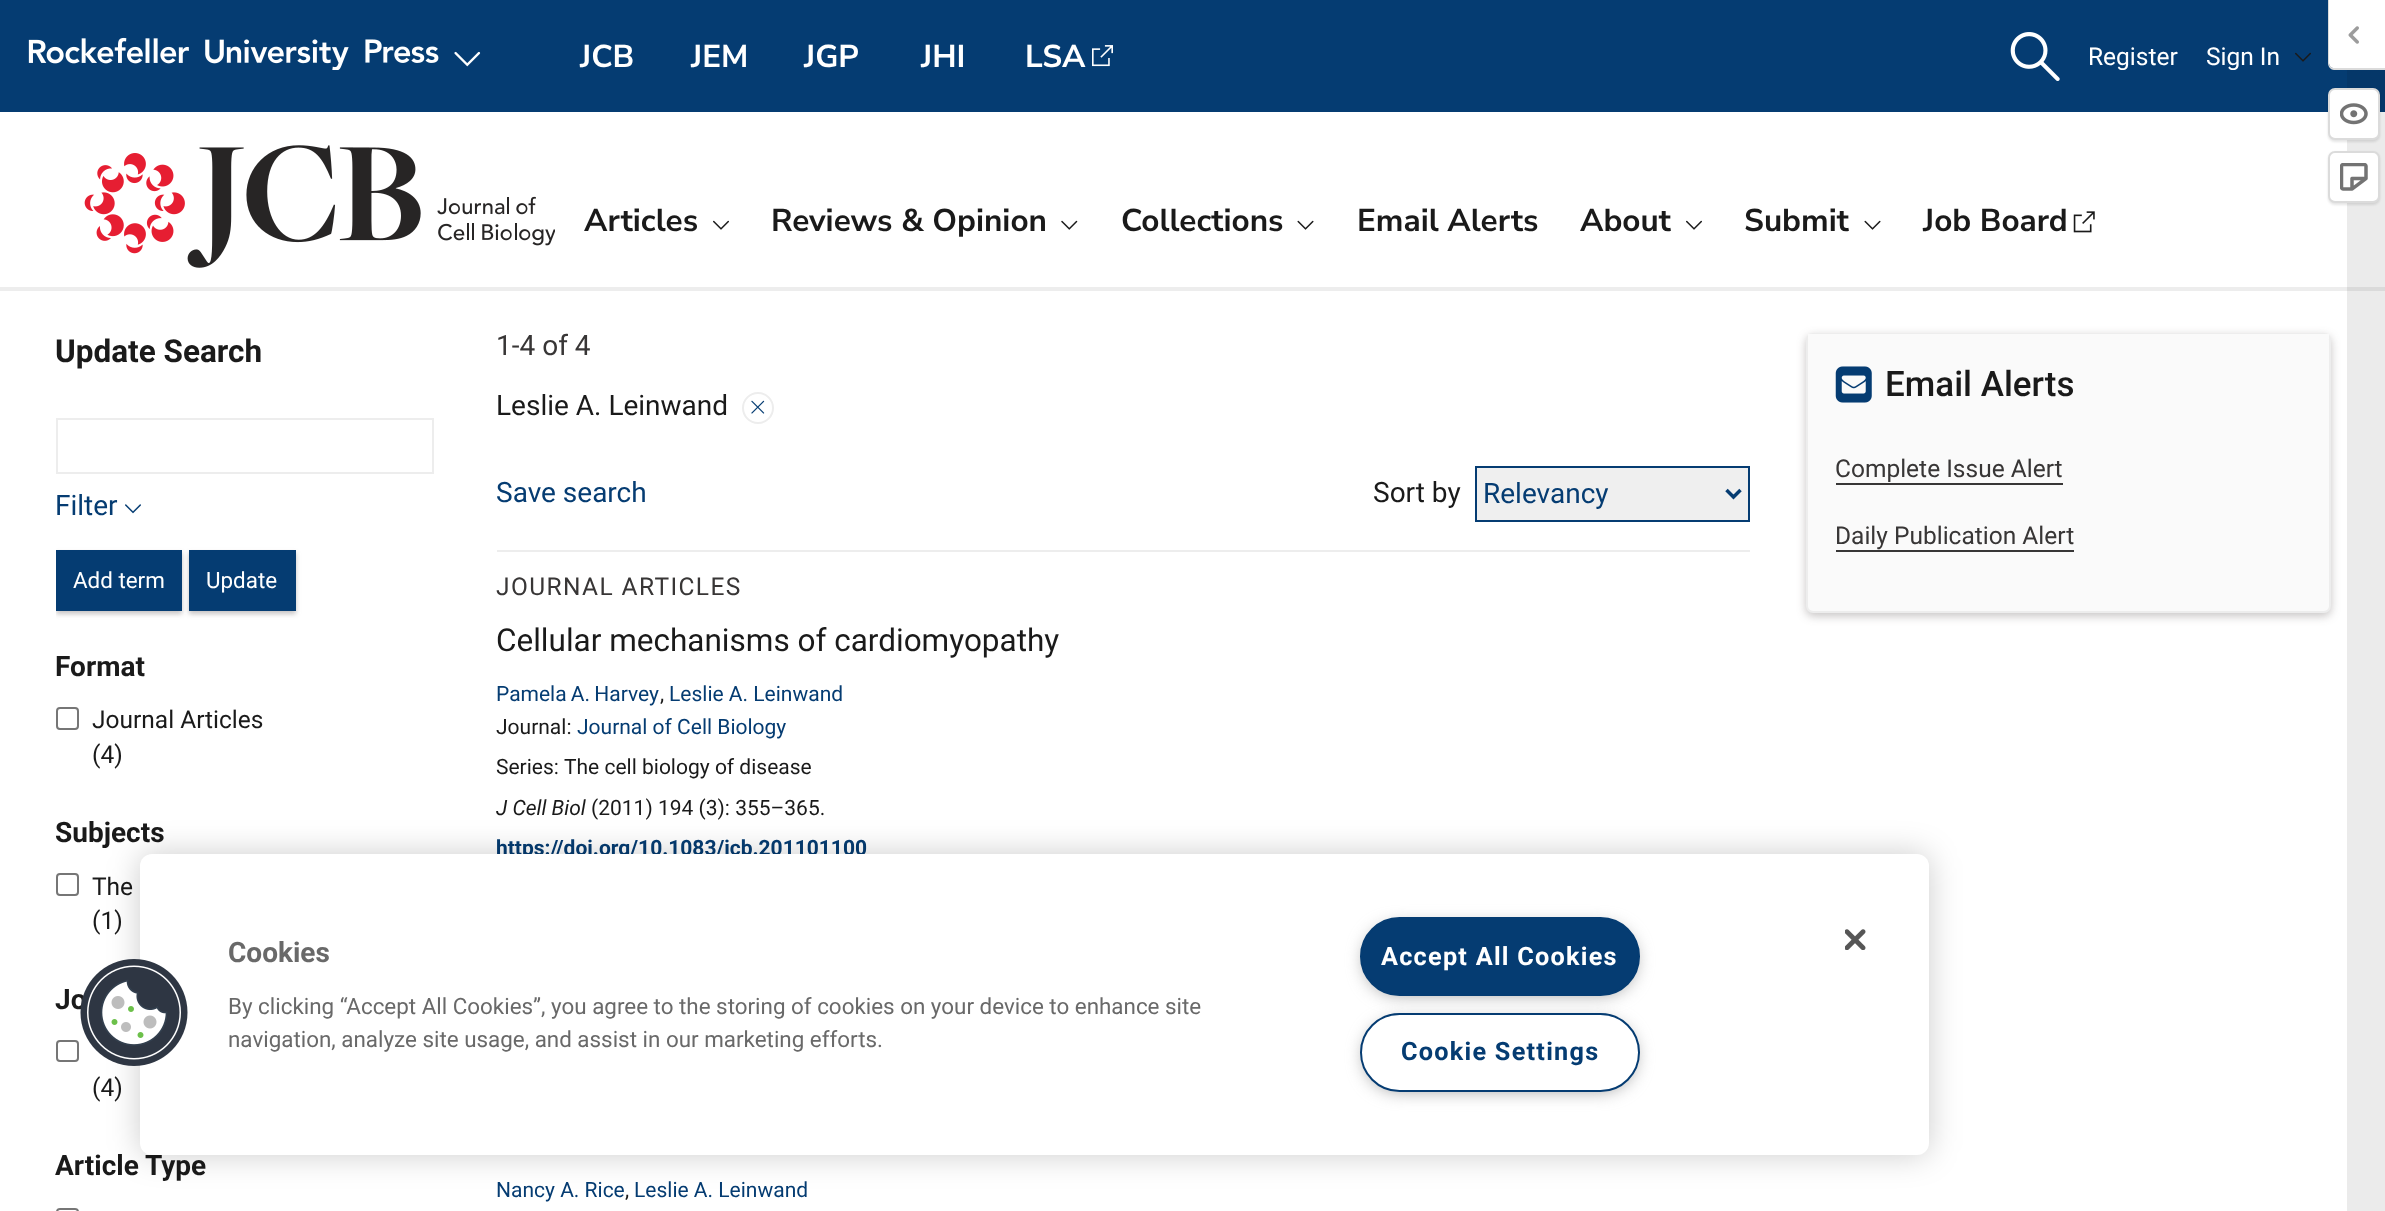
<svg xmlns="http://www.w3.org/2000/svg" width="2385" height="1211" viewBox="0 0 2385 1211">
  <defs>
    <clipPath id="clip1"><rect x="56" y="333" width="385" height="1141"/></clipPath>
  </defs>
  <rect width="100%" height="100%" fill="rgb(255,255,255)"/>
  <rect x="2347" y="112" width="38" height="1099" fill="rgb(235,235,235)"/>
  <rect x="0" y="0" width="2347" height="112" fill="rgb(5,60,114)"/>
  <rect x="2347" y="70" width="38" height="42" fill="rgb(5,55,105)"/>
  <image x="28" y="37" width="411" height="33" href="pic1.png"/>
  <image x="454" y="51" width="27" height="16" href="pic2.png"/>
  <g font-family="Nunito Sans" font-size="31.5" font-weight="bold" fill="rgb(255,255,255)">
    <text x="580" y="67">JCB</text>
    <text x="691" y="67">JEM</text>
    <text x="804" y="67">JGP</text>
    <text x="921" y="67">JHI</text>
    <text x="1025" y="67">LSA</text>
  </g>
  <image x="1092" y="45" width="21" height="22" href="pic3.png"/>
  <image x="2010" y="32" width="50" height="49" href="pic4.png"/>
  <g font-family="Roboto" font-size="24.5" fill="rgb(255,255,255)">
    <text x="2088" y="65">Register</text>
    <text x="2206" y="65">Sign In</text>
  </g>
  <image x="2295" y="52" width="16" height="10" href="pic5.png"/>
  <rect x="0" y="287" width="2347" height="4" fill="rgb(237,237,237)"/>
  <rect x="2347" y="287" width="38" height="4" fill="rgb(218,218,218)"/>
  <image x="84" y="145" width="471" height="123" href="pic6.png"/>
  <text x="584" y="231" font-family="Nunito Sans" font-size="31.5" font-weight="bold" fill="rgb(26,26,26)">Articles</text>
  <image x="713" y="220" width="16" height="10" href="pic7.png"/>
  <text x="771" y="231" font-family="Nunito Sans" font-size="31.5" font-weight="bold" fill="rgb(26,26,26)">Reviews &amp; Opinion</text>
  <image x="1061" y="220" width="17" height="10" href="pic8.png"/>
  <text x="1121" y="231" font-family="Nunito Sans" font-size="31.5" font-weight="bold" fill="rgb(26,26,26)">Collections</text>
  <image x="1297" y="220" width="17" height="10" href="pic9.png"/>
  <g font-family="Nunito Sans" font-size="31.5" font-weight="bold" fill="rgb(26,26,26)">
    <text x="1357" y="231">Email Alerts</text>
    <text x="1580" y="231">About</text>
  </g>
  <image x="1686" y="220" width="16" height="10" href="pic7.png"/>
  <text x="1744" y="231" font-family="Nunito Sans" font-size="31.5" font-weight="bold" fill="rgb(26,26,26)">Submit</text>
  <image x="1864" y="220" width="17" height="10" href="pic9.png"/>
  <text x="1923" y="231" font-family="Nunito Sans" font-size="31.5" font-weight="bold" fill="rgb(26,26,26)">Job Board</text>
  <image x="2073" y="211" width="22" height="22" href="pic10.png"/>
  <path d="M2329 0H2385V68H2334C2331 68 2329 66 2329 63Z" fill="rgb(255,255,255)"/>
  <path d="M2328 0H2385V70H2334C2331 70 2328 67 2328 63ZM2329 0H2385V68H2334C2332 68 2329 66 2329 63Z" fill="rgb(219,219,219)" fill-rule="evenodd"/>
  <image x="2348" y="26" width="11" height="18" href="pic11.png"/>
  <rect x="2328" y="89" width="52" height="53" rx="7" fill="rgba(0,0,0,0.1)" filter="blur(1px)"/>
  <rect x="2329" y="89" width="50" height="50" rx="6" fill="rgb(255,255,255)" stroke="rgb(219,219,219)" stroke-width="2"/>
  <image x="2340" y="103" width="28" height="22" href="pic12.png"/>
  <rect x="2328" y="152" width="52" height="53" rx="7" fill="rgba(0,0,0,0.1)" filter="blur(1px)"/>
  <rect x="2329" y="152" width="50" height="50" rx="6" fill="rgb(255,255,255)" stroke="rgb(219,219,219)" stroke-width="2"/>
  <image x="2340" y="163" width="28" height="28" href="pic13.png"/>
  <text x="55" y="362" font-family="Roboto" font-size="31.5" font-weight="bold" fill="rgb(26,26,26)">Update Search</text>
  <rect x="57" y="419" width="376" height="54" fill="none" stroke="rgb(237,237,237)" stroke-width="2"/>
  <text x="55" y="515" font-family="Roboto" font-size="28" fill="rgb(5,60,114)">Filter</text>
  <image x="125" y="504" width="16" height="10" href="pic14.png"/>
  <g clip-path="url(#clip1)">
    <rect x="56" y="553" width="126" height="61" fill="rgba(67,56,56,0.3)" filter="blur(2.5px)"/>
  </g>
  <rect x="56" y="550" width="126" height="61" fill="rgb(5,60,114)"/>
  <text x="73" y="588" font-family="Roboto" font-size="22.4" fill="rgb(255,255,255)">Add term</text>
  <rect x="189" y="553" width="107" height="61" fill="rgba(67,56,56,0.3)" filter="blur(2.5px)"/>
  <rect x="189" y="550" width="107" height="61" fill="rgb(5,60,114)"/>
  <text x="206" y="588" font-family="Roboto" font-size="22.4" fill="rgb(255,255,255)">Update</text>
  <text x="55" y="676" font-family="Roboto" font-size="28" font-weight="bold" fill="rgb(26,26,26)">Format</text>
  <rect x="57" y="708" width="21" height="21" rx="3" fill="none" stroke="rgb(118,118,118)" stroke-width="2"/>
  <g font-family="Roboto" font-size="24.5" fill="rgb(26,26,26)">
    <text>
      <tspan x="92" y="728">Journal Articles</tspan>
      <tspan x="92" y="763">(4)</tspan>
    </text>
  </g>
  <text x="55" y="842" font-family="Roboto" font-size="28" font-weight="bold" fill="rgb(26,26,26)">Subjects</text>
  <rect x="57" y="874" width="21" height="21" rx="3" fill="none" stroke="rgb(118,118,118)" stroke-width="2"/>
  <g font-family="Roboto" font-size="24.5" fill="rgb(26,26,26)">
    <text>
      <tspan x="92" y="895">The</tspan>
      <tspan x="92" y="929">(1)</tspan>
    </text>
  </g>
  <text x="55" y="1009" font-family="Roboto" font-size="28" font-weight="bold" fill="rgb(26,26,26)">Jo</text>
  <rect x="57" y="1041" width="21" height="20" rx="3" fill="none" stroke="rgb(118,118,118)" stroke-width="2"/>
  <text x="92" y="1096" font-family="Roboto" font-size="24.5" fill="rgb(26,26,26)">(4)</text>
  <text x="55" y="1175" font-family="Roboto" font-size="28" font-weight="bold" fill="rgb(26,26,26)">Article Type</text>
  <rect x="57" y="1209" width="21" height="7" rx="3" fill="none" stroke="rgb(118,118,118)" stroke-width="2"/>
  <text x="496" y="355" font-family="Roboto" font-size="28" fill="rgb(56,54,54)">1-4 of 4</text>
  <text x="496" y="415" font-family="Roboto" font-size="28" fill="rgb(26,26,26)">Leslie A. Leinwand</text>
  <circle cx="758" cy="408" r="15" fill="none" stroke="rgb(237,237,237)" stroke-width="2"/>
  <image x="751" y="400" width="14" height="14" href="pic15.png"/>
  <text x="496" y="502" font-family="Roboto" font-size="28" fill="rgb(5,60,114)">Save search</text>
  <text x="1373" y="502" font-family="Roboto" font-size="28" fill="rgb(26,26,26)">Sort by</text>
  <rect x="1476" y="467" width="273" height="54" fill="rgb(239,239,239)" stroke="rgb(5,60,114)" stroke-width="2"/>
  <path d="M1726.5 490L1733.5 497L1740.5 490" fill="none" stroke="rgb(5,60,114)" stroke-width="3.5"/>
  <text x="1483" y="503" font-family="Roboto" font-size="28" fill="rgb(5,60,114)">Relevancy</text>
  <rect x="497" y="550" width="1253" height="2" fill="rgb(237,237,237)"/>
  <text x="496" y="595" font-family="Roboto" font-size="24.5" letter-spacing="1.4" fill="rgb(56,54,54)">JOURNAL ARTICLES</text>
  <text x="496" y="651" font-family="Roboto" font-size="31.5" fill="rgb(26,26,26)">Cellular mechanisms of cardiomyopathy</text>
  <text x="496" y="701" word-spacing="-1" font-family="Roboto" font-size="21" fill="rgb(5,60,114)">Pamela A. Harvey</text>
  <text x="660" y="701" font-family="Roboto" font-size="21" fill="rgb(26,26,26)">,</text>
  <text x="669" y="701" font-family="Roboto" font-size="21" fill="rgb(5,60,114)">Leslie A. Leinwand</text>
  <text x="496" y="734" font-family="Roboto" font-size="21" fill="rgb(26,26,26)">Journal:</text>
  <text x="577" y="734" font-family="Roboto" font-size="21" fill="rgb(5,60,114)">Journal of Cell Biology</text>
  <g font-family="Roboto" font-size="21" fill="rgb(26,26,26)">
    <text x="496" y="774">Series:</text>
    <text x="564" y="774">The cell biology of disease</text>
  </g>
  <text x="496" y="815" font-family="Roboto" font-size="21" font-style="italic" fill="rgb(26,26,26)">J Cell Biol</text>
  <text x="591" y="815" font-family="Roboto" font-size="21" fill="rgb(26,26,26)">(2011) 194 (3): 355–365.</text>
  <text x="496" y="855" font-family="Roboto" font-size="21" font-weight="bold" fill="rgb(5,60,114)">https://doi.org/10.1083/jcb.201101100</text>
  <text x="496" y="1197" font-family="Roboto" font-size="21" fill="rgb(5,60,114)">Nancy A. Rice</text>
  <text x="625" y="1197" font-family="Roboto" font-size="21" fill="rgb(26,26,26)">,</text>
  <text x="634" y="1197" font-family="Roboto" font-size="21" fill="rgb(5,60,114)">Leslie A. Leinwand</text>
  <rect x="1806" y="336" width="525" height="280" rx="7" fill="rgba(67,56,56,0.3)" filter="blur(5px)"/>
  <rect x="1807" y="334" width="523" height="278" rx="6" fill="rgb(250,250,250)" stroke="rgb(237,237,237)" stroke-width="2"/>
  <rect x="1808" y="334" width="521" height="5" fill="rgb(250,250,250)"/>
  <image x="1835" y="366" width="37" height="37" href="pic16.png"/>
  <text x="1885" y="396" font-family="Roboto" font-size="35" font-weight="500" fill="rgb(26,26,26)">Email Alerts</text>
  <text x="1835" y="477" font-family="Roboto" font-size="24.5" fill="rgb(56,54,54)">Complete Issue Alert</text>
  <rect x="1836" y="483" width="227" height="2" fill="rgb(56,54,54)"/>
  <text x="1835" y="544" font-family="Roboto" font-size="24.5" fill="rgb(56,54,54)">Daily Publication Alert</text>
  <rect x="1836" y="550" width="238" height="2" fill="rgb(56,54,54)"/>
  <rect x="140" y="854" width="1789" height="301" rx="12" fill="rgba(0,0,0,0.2)" filter="blur(16px)"/>
  <rect x="140" y="854" width="1789" height="301" rx="12" fill="rgb(255,255,255)"/>
  <image x="80" y="959" width="108" height="107" href="pic17.png"/>
  <text x="228" y="962" font-family="Roboto" font-size="28" font-weight="bold" fill="rgb(105,105,105)">Cookies</text>
  <g font-family="Roboto" font-size="22.4" fill="rgb(105,105,105)">
    <text>
      <tspan x="228" y="1014">By clicking “Accept All Cookies”, you agree to the storing of cookies on your device to enhance site</tspan>
      <tspan x="228" y="1047">navigation, analyze site usage, and assist in our marketing efforts.</tspan>
    </text>
  </g>
  <rect x="1365" y="926" width="270" height="68" rx="34" fill="rgb(153,153,153)" filter="blur(9px)"/>
  <rect x="1361" y="918" width="278" height="77" rx="38.5" fill="rgb(5,60,114)" stroke="rgb(5,60,114)" stroke-width="2"/>
  <text x="1381" y="965" font-family="Roboto" font-size="25.25" font-weight="bold" letter-spacing="1.25" fill="rgb(255,255,255)">Accept All Cookies</text>
  <rect x="1365" y="1022" width="270" height="68" rx="34" fill="rgb(153,153,153)" filter="blur(9px)"/>
  <rect x="1361" y="1014" width="278" height="77" rx="38.5" fill="rgb(255,255,255)" stroke="rgb(5,60,114)" stroke-width="2"/>
  <text x="1401" y="1060" font-family="Roboto" font-size="25.25" font-weight="bold" letter-spacing="1.25" fill="rgb(5,60,114)">Cookie Settings</text>
  <image x="1845" y="929" width="21" height="21" href="pic18.png"/>
</svg>
